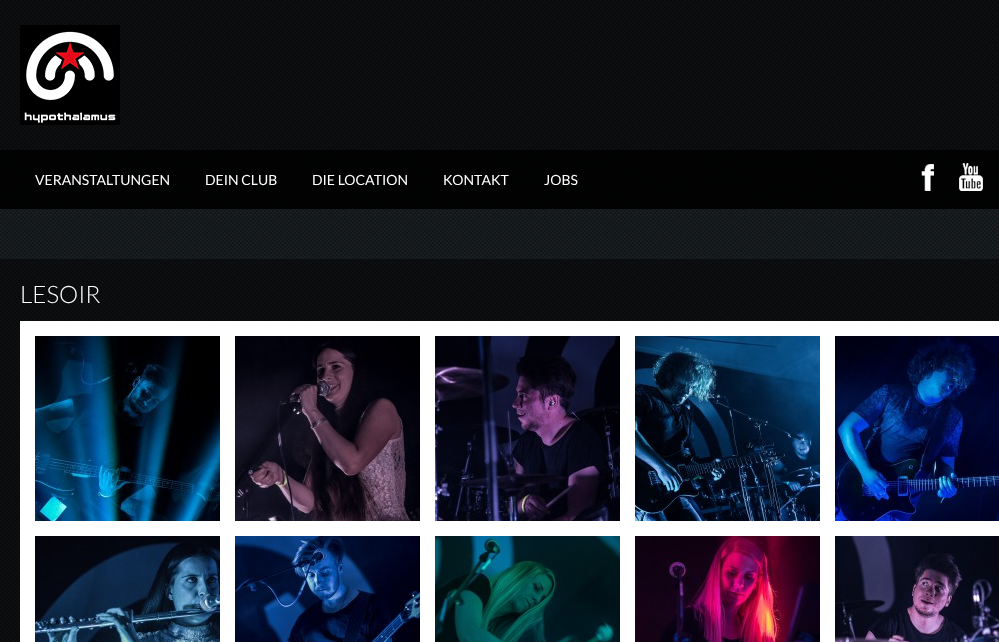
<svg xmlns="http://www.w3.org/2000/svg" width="999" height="642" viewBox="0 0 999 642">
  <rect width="100%" height="100%" fill="rgb(255,255,255)"/>
  <image x="0" y="0" width="999" height="642" href="pic1.png"/>
  <rect x="0" y="0" width="999" height="150" fill="rgba(0,0,0,0.5)"/>
  <image x="20" y="25" width="100" height="100" href="pic2.png"/>
  <rect x="0" y="150" width="999" height="59" fill="rgba(0,0,0,0.91)"/>
  <g font-family="Lato" font-size="14" fill="rgb(255,255,255)">
    <text x="35" y="185">VERANSTALTUNGEN</text>
    <text x="205" y="185">DEIN CLUB</text>
    <text x="312" y="185">DIE LOCATION</text>
    <text x="443" y="185">KONTAKT</text>
    <text x="544" y="185">JOBS</text>
  </g>
  <image x="921" y="164" width="13" height="27" href="pic3.png"/>
  <image x="959" y="163" width="24" height="28" href="pic4.png"/>
  <rect x="0" y="259" width="999" height="383" fill="rgba(0,0,0,0.5)"/>
  <text x="20" y="303" font-family="Lato" font-size="24" font-weight="300" fill="rgb(255,255,255)">LESOIR</text>
  <rect x="20" y="321" width="979" height="321" fill="rgb(255,255,255)"/>
  <image x="35" y="336" width="185" height="185" href="pic5.png"/>
  <image x="235" y="336" width="185" height="185" href="pic6.png"/>
  <image x="435" y="336" width="185" height="185" href="pic7.png"/>
  <image x="635" y="336" width="185" height="185" href="pic8.png"/>
  <image x="835" y="336" width="164" height="185" href="pic9.png"/>
  <image x="35" y="536" width="185" height="106" href="pic10.png"/>
  <image x="235" y="536" width="185" height="106" href="pic11.png"/>
  <image x="435" y="536" width="185" height="106" href="pic12.png"/>
  <image x="635" y="536" width="185" height="106" href="pic13.png"/>
  <image x="835" y="536" width="164" height="106" href="pic14.png"/>
</svg>
